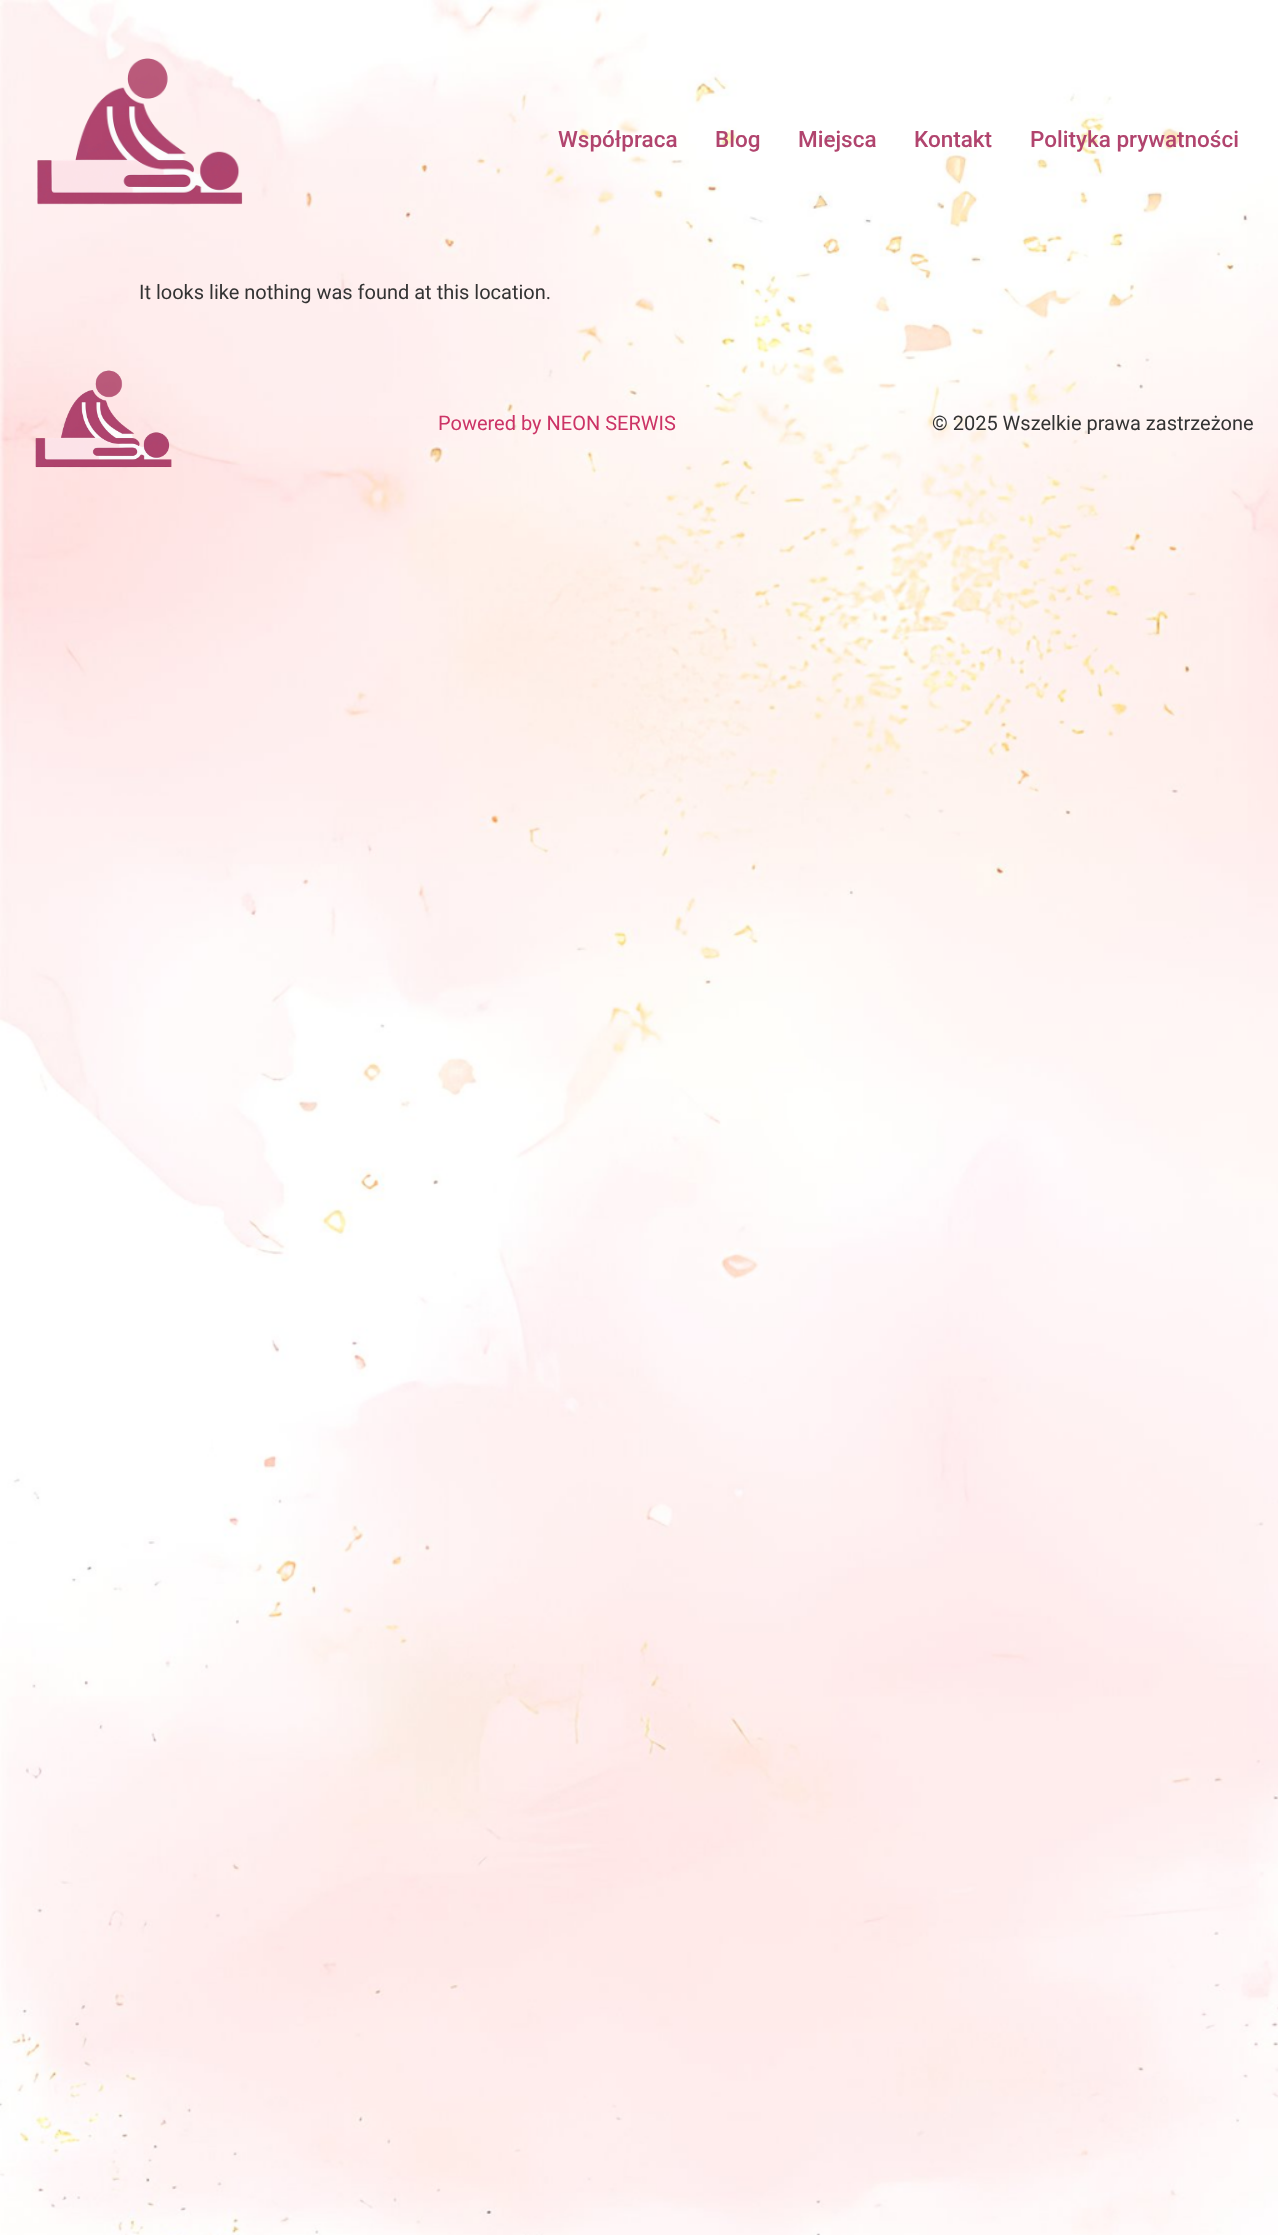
<svg xmlns="http://www.w3.org/2000/svg" width="1278" height="2235" viewBox="0 0 1278 2235">
  <rect width="100%" height="100%" fill="rgb(255,255,255)"/>
  <image x="0" y="0" width="1278" height="2235" href="pic1.png"/>
  <image x="37" y="58" width="206" height="147" href="pic2.png"/>
  <g font-family="Roboto" font-size="22.5" font-weight="500" fill="rgb(177,68,110)">
    <text x="558" y="147">Współpraca</text>
    <text x="715" y="147">Blog</text>
    <text x="798" y="147">Miejsca</text>
    <text x="914" y="147">Kontakt</text>
    <text x="1030" y="147">Polityka prywatności</text>
  </g>
  <text x="139" y="299" font-family="Roboto" font-size="20" fill="rgb(51,51,51)">It looks like nothing was found at this location.</text>
  <image x="35" y="370" width="137" height="98" href="pic3.png"/>
  <text x="438" y="430" font-family="Roboto" font-size="20" fill="rgb(204,51,102)">Powered by NEON SERWIS</text>
  <text x="932" y="430" font-family="Roboto" font-size="20" fill="rgb(51,51,51)">© 2025 Wszelkie prawa zastrzeżone</text>
</svg>
